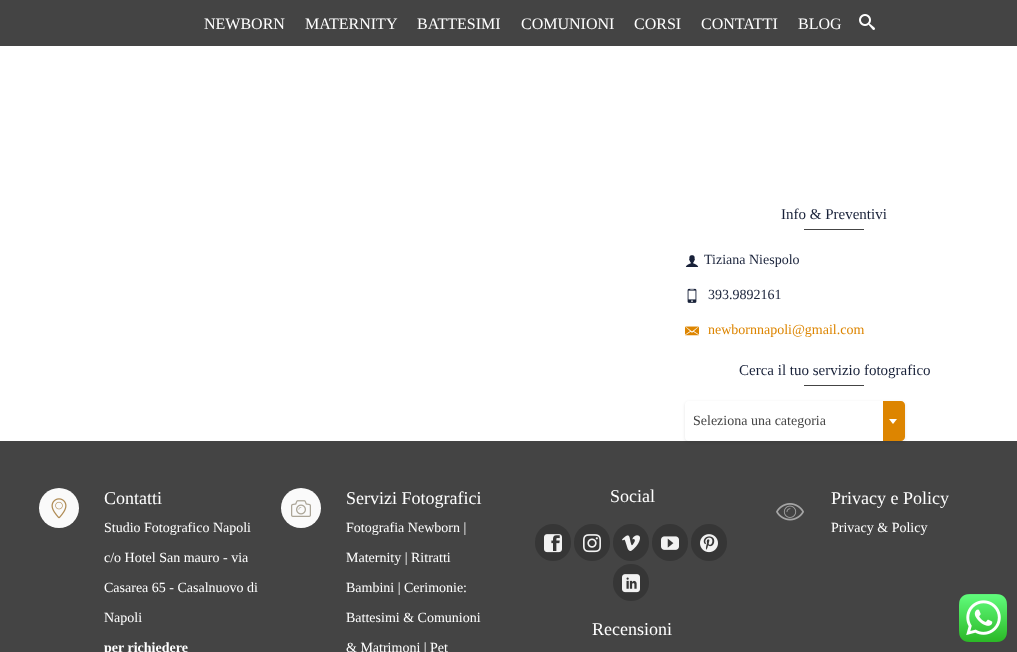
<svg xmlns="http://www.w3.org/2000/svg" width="1017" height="652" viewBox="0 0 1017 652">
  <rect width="100%" height="100%" fill="rgb(255,255,255)"/>
  <rect x="0" y="0" width="1017" height="46" fill="rgb(68,68,68)"/>
  <g font-family="Liberation Serif" font-size="16" fill="rgb(255,255,255)">
    <text x="204" y="29">NEWBORN</text>
    <text x="305" y="29">MATERNITY</text>
    <text x="417" y="29">BATTESIMI</text>
    <text x="521" y="29">COMUNIONI</text>
    <text x="634" y="29">CORSI</text>
    <text x="701" y="29">CONTATTI</text>
    <text x="798" y="29">BLOG</text>
  </g>
  <image x="859" y="14" width="16" height="16" href="pic1.png"/>
  <text x="781" y="219" font-family="Liberation Serif" font-size="15" fill="rgb(24,33,57)">Info &amp; Preventivi</text>
  <rect x="804" y="229" width="60" height="1" fill="rgb(68,68,68)"/>
  <image x="685" y="255" width="14" height="12" href="pic2.png"/>
  <text x="704" y="264" font-family="Liberation Serif" font-size="14" fill="rgb(24,33,57)">Tiziana Niespolo</text>
  <image x="687" y="288" width="10" height="15" href="pic3.png"/>
  <text x="708" y="299" font-family="Liberation Serif" font-size="14" fill="rgb(24,33,57)">393.9892161</text>
  <image x="685" y="326" width="14" height="10" href="pic4.png"/>
  <text x="708" y="334" font-family="Liberation Serif" font-size="14" fill="rgb(221,133,0)">newbornnapoli@gmail.com</text>
  <text x="739" y="375" font-family="Liberation Serif" font-size="15" fill="rgb(24,33,57)">Cerca il tuo servizio fotografico</text>
  <rect x="804" y="385" width="60" height="1" fill="rgb(68,68,68)"/>
  <rect x="0" y="441" width="1017" height="211" fill="rgb(68,68,68)"/>
  <rect x="685" y="402" width="220" height="40" rx="4" fill="rgba(0,0,0,0.1)" filter="blur(1.5px)"/>
  <rect x="685" y="401" width="220" height="40" rx="4" fill="rgb(255,255,255)"/>
  <text x="693" y="425" font-family="Liberation Serif" font-size="14" fill="rgb(68,68,68)">Seleziona una categoria</text>
  <path d="M883 401H901C903 401 905 403 905 405V437C905 439 903 441 901 441H883Z" fill="rgb(221,133,0)"/>
  <path d="M889 419H897L893 424Z" fill="rgb(255,255,255)"/>
  <circle cx="59" cy="508" r="20" fill="rgb(250,250,250)"/>
  <image x="51" y="498" width="16" height="21" href="pic5.png"/>
  <text x="104" y="504" font-family="Liberation Serif" font-size="18" fill="rgb(255,255,255)">Contatti</text>
  <g font-family="Liberation Serif" font-size="14" fill="rgb(255,255,255)">
    <text x="104" y="532">Studio Fotografico Napoli</text>
    <text x="104" y="562">c/o Hotel San mauro - via</text>
    <text x="104" y="592">Casarea 65 - Casalnuovo di</text>
    <text x="104" y="622">Napoli</text>
  </g>
  <text x="104" y="652" font-family="Liberation Serif" font-size="14" font-weight="bold" fill="rgb(255,255,255)">per richiedere</text>
  <circle cx="301" cy="508" r="20" fill="rgb(250,250,250)"/>
  <image x="291" y="500" width="20" height="17" href="pic6.png"/>
  <text x="346" y="504" font-family="Liberation Serif" font-size="18" fill="rgb(255,255,255)">Servizi Fotografici</text>
  <g font-family="Liberation Serif" font-size="14" fill="rgb(255,255,255)">
    <text x="346" y="532">Fotografia Newborn |</text>
    <text x="346" y="562">Maternity | Ritratti</text>
    <text x="346" y="592">Bambini | Cerimonie:</text>
    <text x="346" y="622">Battesimi &amp; Comunioni</text>
    <text x="346" y="652">&amp; Matrimoni | Pet</text>
  </g>
  <text x="610" y="502" font-family="Liberation Serif" font-size="18" fill="rgb(255,255,255)">Social</text>
  <rect x="535" y="524" width="36" height="37" rx="18" fill="rgb(54,54,54)"/>
  <image x="544" y="534" width="18" height="19" href="pic7.png"/>
  <rect x="574" y="524" width="36" height="37" rx="18" fill="rgb(54,54,54)"/>
  <image x="583" y="534" width="18" height="19" href="pic8.png"/>
  <rect x="613" y="524" width="36" height="37" rx="18" fill="rgb(54,54,54)"/>
  <image x="622" y="535" width="18" height="16" href="pic9.png"/>
  <rect x="652" y="524" width="36" height="37" rx="18" fill="rgb(54,54,54)"/>
  <image x="661" y="536" width="18" height="14" href="pic10.png"/>
  <rect x="691" y="524" width="36" height="37" rx="18" fill="rgb(54,54,54)"/>
  <image x="700" y="534" width="18" height="19" href="pic11.png"/>
  <rect x="613" y="564" width="36" height="37" rx="18" fill="rgb(54,54,54)"/>
  <image x="622" y="574" width="18" height="19" href="pic12.png"/>
  <text x="592" y="635" font-family="Liberation Serif" font-size="18" fill="rgb(255,255,255)">Recensioni</text>
  <image x="776" y="503" width="28" height="18" href="pic13.png"/>
  <text x="831" y="504" font-family="Liberation Serif" font-size="18" fill="rgb(255,255,255)">Privacy e Policy</text>
  <text x="831" y="532" font-family="Liberation Serif" font-size="14" fill="rgb(255,255,255)">Privacy &amp; Policy</text>
  <image x="959" y="594" width="48" height="48" href="pic14.png"/>
</svg>
